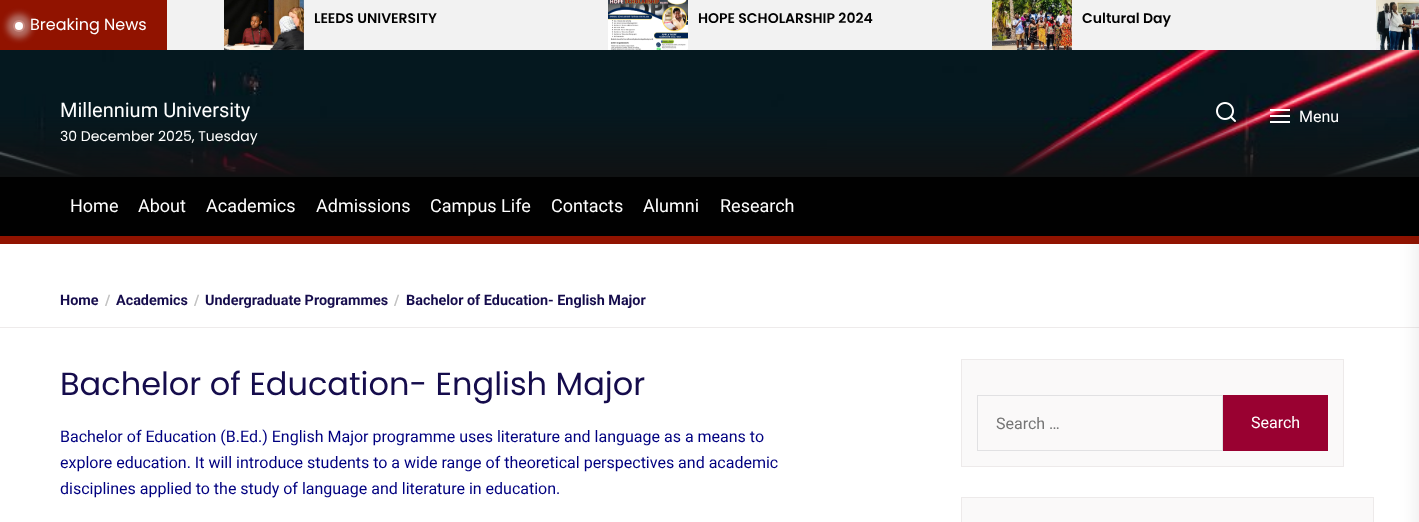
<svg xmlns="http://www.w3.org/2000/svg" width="1419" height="522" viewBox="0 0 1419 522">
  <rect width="100%" height="100%" fill="rgb(255,255,255)"/>
  <rect x="167" y="0" width="1252" height="50" fill="rgb(242,242,242)"/>
  <rect x="0" y="0" width="167" height="50" fill="rgb(145,19,0)"/>
  <rect x="7" y="14" width="24" height="24" rx="12" fill="rgba(215,209,209,0.5)" filter="blur(3px)"/>
  <circle cx="19" cy="26" r="6" fill="rgb(200,137,128)"/>
  <text x="30" y="30" font-family="Poppins" font-size="16" fill="rgb(255,255,255)">Breaking News</text>
  <circle cx="19" cy="26" r="4" fill="rgb(255,255,255)"/>
  <image x="224" y="0" width="80" height="50" href="pic1.png"/>
  <text x="314" y="23" font-family="Poppins" font-size="14" font-weight="600" fill="rgb(1,1,1)">LEEDS UNIVERSITY</text>
  <image x="608" y="0" width="80" height="50" href="pic2.png"/>
  <text x="698" y="23" font-family="Poppins" font-size="14" font-weight="600" fill="rgb(1,1,1)">HOPE SCHOLARSHIP 2024</text>
  <image x="992" y="0" width="80" height="50" href="pic3.png"/>
  <text x="1082" y="23" font-family="Poppins" font-size="14" font-weight="600" fill="rgb(1,1,1)">Cultural Day</text>
  <image x="1376" y="0" width="43" height="50" href="pic4.png"/>
  <image x="0" y="50" width="1419" height="127" href="pic5.png"/>
  <text x="60" y="117" font-family="Roboto" font-size="20" fill="rgb(255,255,255)">Millennium University</text>
  <text x="60" y="141" font-family="Poppins" font-size="14" fill="rgb(255,255,255)">30 December 2025, Tuesday</text>
  <image x="1216" y="102" width="20" height="20" href="pic6.png"/>
  <rect x="1270" y="109" width="20" height="2" fill="rgb(255,255,255)"/>
  <rect x="1270" y="115" width="20" height="2" fill="rgb(255,255,255)"/>
  <rect x="1270" y="121" width="20" height="2" fill="rgb(255,255,255)"/>
  <text x="1299" y="122" font-family="Roboto" font-size="16" fill="rgb(255,255,255)">Menu</text>
  <rect x="0" y="177" width="1419" height="59" fill="rgb(1,1,1)"/>
  <g font-family="Roboto" font-size="18" fill="rgb(255,255,255)">
    <text x="70" y="212">Home</text>
    <text x="138" y="212">About</text>
    <text x="206" y="212">Academics</text>
    <text x="316" y="212">Admissions</text>
    <text x="430" y="212">Campus Life</text>
    <text x="551" y="212">Contacts</text>
    <text x="643" y="212">Alumni</text>
    <text x="720" y="212">Research</text>
  </g>
  <rect x="0" y="236" width="1419" height="8" fill="rgb(145,19,0)"/>
  <rect x="0" y="327" width="1419" height="1" fill="rgb(238,235,235)"/>
  <text x="60" y="305" font-family="Roboto" font-size="14.4" font-weight="bold" fill="rgb(21,12,76)">Home</text>
  <text x="105" y="305" font-family="Roboto" font-size="14.4" font-weight="bold" fill="rgb(194,194,194)">/</text>
  <text x="116" y="305" font-family="Roboto" font-size="14.4" font-weight="bold" fill="rgb(21,12,76)">Academics</text>
  <text x="194" y="305" font-family="Roboto" font-size="14.4" font-weight="bold" fill="rgb(194,194,194)">/</text>
  <text x="205" y="305" font-family="Roboto" font-size="14.4" font-weight="bold" fill="rgb(21,12,76)">Undergraduate Programmes</text>
  <text x="394" y="305" font-family="Roboto" font-size="14.4" font-weight="bold" fill="rgb(194,194,194)">/</text>
  <text x="406" y="305" font-family="Roboto" font-size="14.4" font-weight="bold" fill="rgb(21,12,76)">Bachelor of Education- English Major</text>
  <rect x="1419" y="0" width="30" height="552" fill="rgba(0,0,0,0.1)" filter="blur(10px)"/>
  <text x="60" y="395" font-family="Poppins" font-size="32" fill="rgb(21,12,76)">Bachelor of Education- English Major</text>
  <g font-family="Roboto" font-size="16" fill="rgb(0,0,128)">
    <text>
      <tspan x="60" y="442">Bachelor of Education (B.Ed.) English Major programme uses literature and language as a means to</tspan>
      <tspan x="60" y="468">explore education. It will introduce students to a wide range of theoretical perspectives and academic</tspan>
      <tspan x="60" y="494">disciplines applied to the study of language and literature in education.</tspan>
    </text>
  </g>
  <rect x="961.5" y="359.5" width="382" height="107" fill="rgb(250,249,249)" stroke="rgb(237,234,234)"/>
  <rect x="977.5" y="395.5" width="245" height="55" fill="none" stroke="rgb(225,225,227)"/>
  <text x="996" y="429" font-family="Roboto" font-size="16" fill="rgb(117,117,117)">Search …</text>
  <rect x="1223" y="395" width="105" height="56" fill="rgb(153,1,49)"/>
  <text x="1251" y="428" font-family="Roboto" font-size="16" fill="rgb(255,255,255)">Search</text>
  <rect x="961.5" y="497.5" width="412" height="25" fill="rgb(250,249,249)" stroke="rgb(237,234,234)"/>
</svg>
